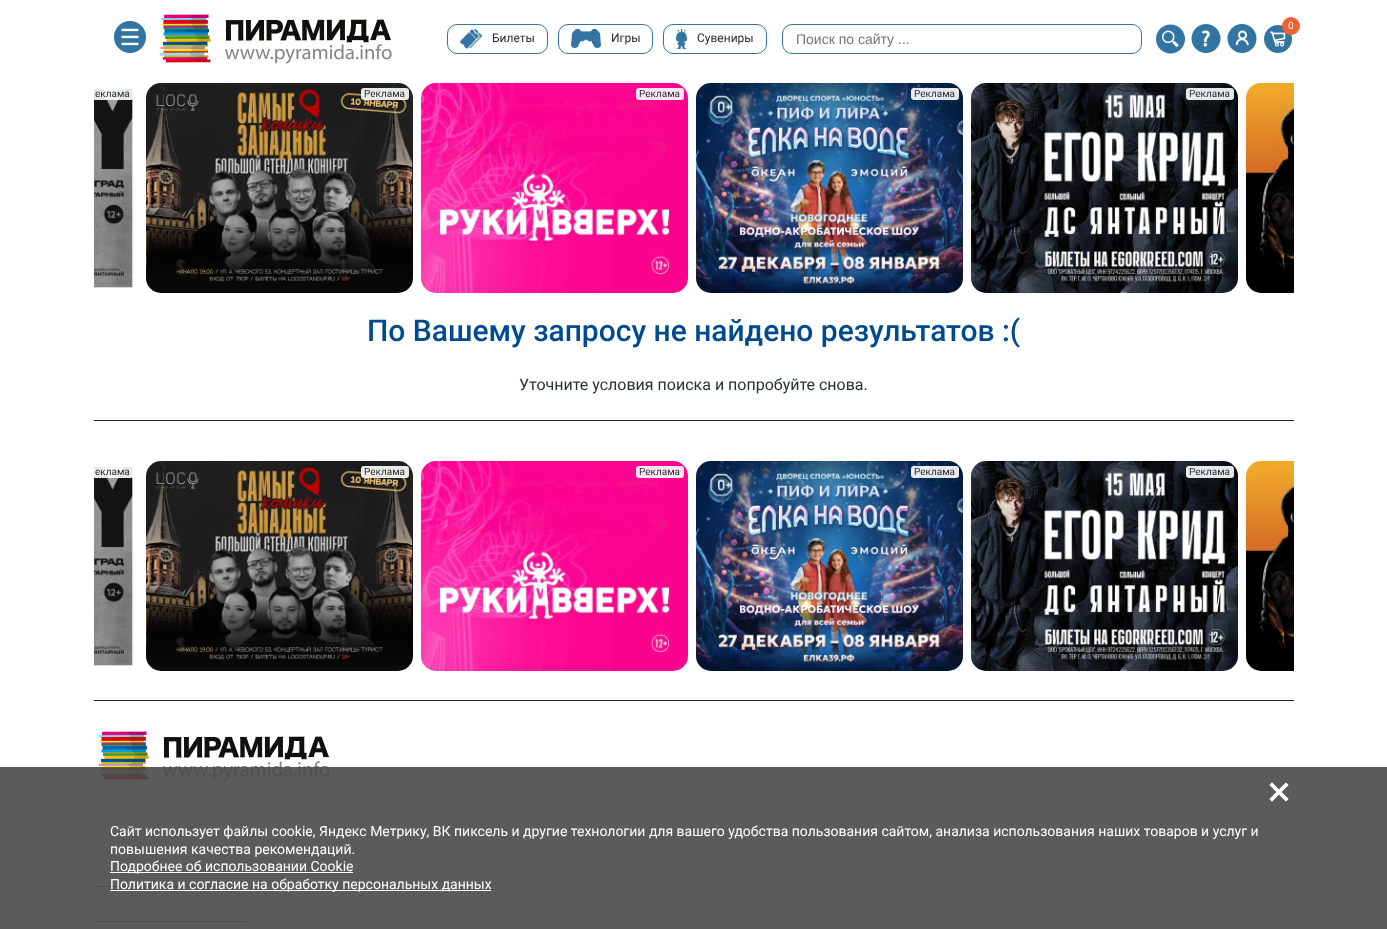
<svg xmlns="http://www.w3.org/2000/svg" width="1387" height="929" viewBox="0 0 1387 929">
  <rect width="100%" height="100%" fill="rgb(255,255,255)"/>
  <image x="114" y="21" width="32" height="32" href="pic1.png"/>
  <image x="159" y="14" width="233" height="50" href="pic2.png"/>
  <image x="1156" y="24" width="29" height="30" href="pic3.png"/>
  <image x="1191" y="24" width="30" height="29" href="pic4.png"/>
  <circle cx="1242" cy="38.5" r="14.5" fill="rgb(50,117,162)"/>
  <circle cx="1242.5" cy="35" r="3.5" fill="none" stroke="rgb(255,255,255)" stroke-width="2"/>
  <path d="M1236.5 45C1237.5 37.5 1246 37 1248 45" fill="none" stroke="rgb(255,255,255)" stroke-width="2"/>
  <image x="1264" y="25" width="28" height="28" href="pic5.png"/>
  <circle cx="1291" cy="26" r="9" fill="rgb(236,99,49)"/>
  <text x="1288" y="29" font-family="Roboto" font-size="10" fill="rgb(255,255,255)">0</text>
  <rect x="447.5" y="24.5" width="100" height="29" rx="9.5" fill="none" stroke="rgb(50,117,162)"/>
  <image x="460" y="29" width="22" height="20" href="pic6.png"/>
  <text x="492" y="42" font-family="Roboto" font-size="12" fill="rgb(44,40,51)">Билеты</text>
  <rect x="558.5" y="24.5" width="94" height="29" rx="9.5" fill="none" stroke="rgb(50,117,162)"/>
  <image x="571" y="29" width="30" height="19" href="pic7.png"/>
  <text x="611" y="42" font-family="Roboto" font-size="12" fill="rgb(44,40,51)">Игры</text>
  <rect x="663.5" y="24.5" width="103" height="29" rx="9.5" fill="none" stroke="rgb(50,117,162)"/>
  <image x="676" y="29" width="11" height="20" href="pic8.png"/>
  <text x="697" y="42" font-family="Roboto" font-size="12" fill="rgb(44,40,51)">Сувениры</text>
  <rect x="782.5" y="24.5" width="359" height="29" rx="9.5" fill="none" stroke="rgb(50,117,162)"/>
  <text x="796" y="44" font-family="Liberation Sans" font-size="14" fill="rgb(117,117,117)">Поиск по сайту ...</text>
  <image x="94" y="88" width="39" height="200" href="pic9.png"/>
  <path d="M94 88H131C132.5 88 134 89.5 134 91V97C134 98.5 132.5 100 131 100H94Z" fill="rgba(255,255,255,0.9)"/>
  <text x="95" y="97" font-family="Roboto" font-size="10" fill="rgb(39,50,52)">еклама</text>
  <image x="146" y="83" width="267" height="210" href="pic10.png"/>
  <rect x="361" y="88" width="48" height="12" rx="3" fill="rgba(255,255,255,0.9)"/>
  <text x="364" y="97" font-family="Roboto" font-size="10" fill="rgb(39,50,52)">Реклама</text>
  <image x="421" y="83" width="267" height="210" href="pic11.png"/>
  <rect x="636" y="88" width="48" height="12" rx="3" fill="rgba(255,255,255,0.9)"/>
  <text x="639" y="97" font-family="Roboto" font-size="10" fill="rgb(39,50,52)">Реклама</text>
  <image x="696" y="83" width="267" height="210" href="pic12.png"/>
  <rect x="911" y="88" width="48" height="12" rx="3" fill="rgba(255,255,255,0.9)"/>
  <text x="914" y="97" font-family="Roboto" font-size="10" fill="rgb(39,50,52)">Реклама</text>
  <image x="971" y="83" width="267" height="210" href="pic13.png"/>
  <rect x="1186" y="88" width="48" height="12" rx="3" fill="rgba(255,255,255,0.9)"/>
  <text x="1189" y="97" font-family="Roboto" font-size="10" fill="rgb(39,50,52)">Реклама</text>
  <image x="1246" y="83" width="48" height="210" href="pic14.png"/>
  <text x="367" y="341" font-family="Roboto" font-size="30" font-weight="500" fill="rgb(0,75,143)">По Вашему запросу не найдено результатов :(</text>
  <text x="519" y="390" font-family="Roboto" font-size="16" fill="rgb(39,50,52)">Уточните условия поиска и попробуйте снова.</text>
  <rect x="94" y="420" width="1200" height="1" fill="rgb(44,40,51)"/>
  <image x="94" y="466" width="39" height="200" href="pic9.png"/>
  <path d="M94 466H131C132.5 466 134 467.5 134 469V475C134 476.5 132.5 478 131 478H94Z" fill="rgba(255,255,255,0.9)"/>
  <text x="95" y="475" font-family="Roboto" font-size="10" fill="rgb(39,50,52)">еклама</text>
  <image x="146" y="461" width="267" height="210" href="pic15.png"/>
  <rect x="361" y="466" width="48" height="12" rx="3" fill="rgba(255,255,255,0.9)"/>
  <text x="364" y="475" font-family="Roboto" font-size="10" fill="rgb(39,50,52)">Реклама</text>
  <image x="421" y="461" width="267" height="210" href="pic16.png"/>
  <rect x="636" y="466" width="48" height="12" rx="3" fill="rgba(255,255,255,0.9)"/>
  <text x="639" y="475" font-family="Roboto" font-size="10" fill="rgb(39,50,52)">Реклама</text>
  <image x="696" y="461" width="267" height="210" href="pic17.png"/>
  <rect x="911" y="466" width="48" height="12" rx="3" fill="rgba(255,255,255,0.9)"/>
  <text x="914" y="475" font-family="Roboto" font-size="10" fill="rgb(39,50,52)">Реклама</text>
  <image x="971" y="461" width="267" height="210" href="pic18.png"/>
  <rect x="1186" y="466" width="48" height="12" rx="3" fill="rgba(255,255,255,0.9)"/>
  <text x="1189" y="475" font-family="Roboto" font-size="10" fill="rgb(39,50,52)">Реклама</text>
  <image x="1246" y="461" width="48" height="210" href="pic14.png"/>
  <rect x="94" y="700" width="1200" height="1" fill="rgb(44,40,51)"/>
  <image x="97" y="731" width="233" height="50" href="pic2.png"/>
  <rect x="94" y="886" width="118" height="1" fill="rgb(0,145,200)"/>
  <rect x="94" y="921" width="152" height="1" fill="rgb(0,145,200)"/>
  <rect x="0" y="767" width="1387" height="162" fill="rgba(73,73,73,0.9)"/>
  <image x="1269" y="782" width="20" height="20" href="pic19.png"/>
  <g font-family="Roboto" font-size="14" fill="rgb(255,255,255)">
    <text>
      <tspan x="110" y="836">Сайт использует файлы cookie, Яндекс Метрику, ВК пиксель и другие технологии для вашего удобства пользования сайтом, анализа использования наших товаров и услуг и</tspan>
      <tspan x="110" y="854">повышения качества рекомендаций.</tspan>
    </text>
  </g>
  <rect x="110" y="872" width="243" height="1" fill="rgb(255,255,255)"/>
  <text x="110" y="871" font-family="Roboto" font-size="14" fill="rgb(255,255,255)">Подробнее об использовании Cookie</text>
  <rect x="110" y="890" width="381" height="1" fill="rgb(255,255,255)"/>
  <text x="110" y="889" font-family="Roboto" font-size="14" fill="rgb(255,255,255)">Политика и согласие на обработку персональных данных</text>
</svg>
